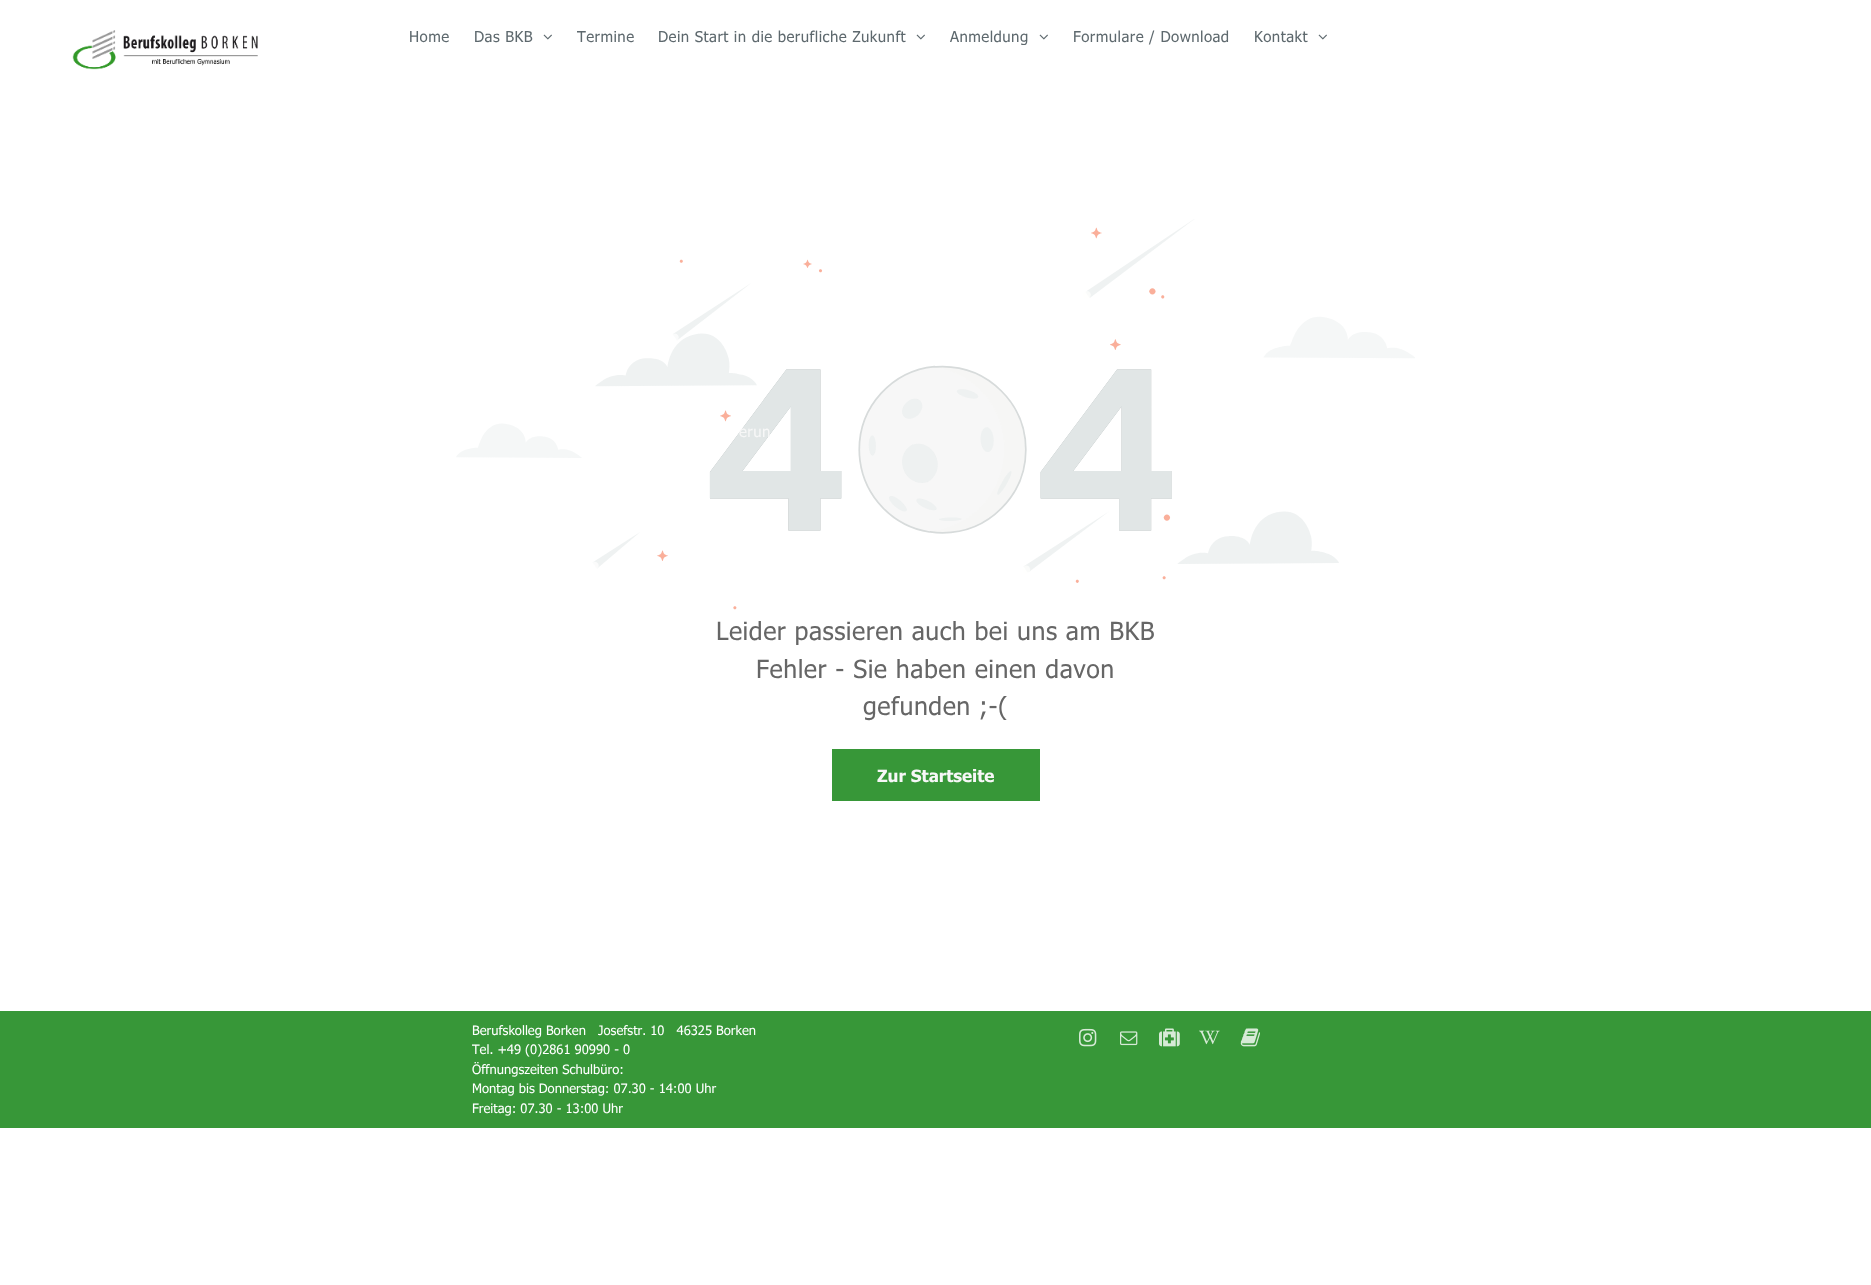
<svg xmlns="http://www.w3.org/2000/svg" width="1871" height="1285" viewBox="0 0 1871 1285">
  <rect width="100%" height="100%" fill="rgb(255,255,255)"/>
  <image x="72" y="30" width="186" height="40" href="pic1.png"/>
  <g font-family="Tahoma" font-size="15" letter-spacing="0.45" fill="rgb(94,105,110)">
    <text x="409" y="42">Home</text>
    <text x="474" y="42">Das BKB</text>
  </g>
  <image x="543" y="34" width="9" height="6" href="pic2.png"/>
  <image x="456" y="219" width="959" height="391" href="pic3.png"/>
  <text x="739" y="437" font-family="Tahoma" font-size="15" letter-spacing="0.45" fill="rgb(247,247,247)">erun</text>
  <text x="658" y="42" font-family="Tahoma" font-size="15" letter-spacing="0.45" fill="rgb(94,105,110)">Dein Start in die berufliche Zukunft</text>
  <image x="916" y="34" width="9" height="6" href="pic2.png"/>
  <text x="950" y="42" font-family="Tahoma" font-size="15" letter-spacing="0.45" fill="rgb(94,105,110)">Anmeldung</text>
  <image x="1039" y="34" width="9" height="6" href="pic2.png"/>
  <g font-family="Tahoma" font-size="15" letter-spacing="0.45" fill="rgb(94,105,110)">
    <text x="1073" y="42">Formulare / Download</text>
    <text x="1254" y="42">Kontakt</text>
  </g>
  <image x="1318" y="34" width="9" height="6" href="pic2.png"/>
  <text x="577" y="42" font-family="Tahoma" font-size="15" letter-spacing="0.45" fill="rgb(94,105,110)">Termine</text>
  <g font-family="Tahoma" font-size="25" letter-spacing="0.5" fill="rgb(102,102,102)">
    <text x="716" y="640">Leider passieren auch bei uns am BKB</text>
    <text x="756" y="678">Fehler - Sie haben einen davon</text>
    <text x="863" y="715">gefunden ;-(</text>
  </g>
  <rect x="832" y="749" width="208" height="52" fill="rgb(55,151,56)"/>
  <text x="877" y="782" font-family="Tahoma" font-size="17" font-weight="bold" fill="rgb(247,247,247)">Zur Startseite</text>
  <rect x="0" y="1011" width="1871" height="117" fill="rgb(55,151,56)"/>
  <g font-family="Tahoma" font-size="13" fill="rgb(255,255,255)">
    <text xml:space="preserve"><tspan x="472" y="1035">Berufskolleg Borken   Josefstr. 10   46325 Borken</tspan><tspan x="472" y="1054">Tel. +49 (0)2861 90990 - 0</tspan><tspan x="472" y="1074">Öffnungszeiten Schulbüro:</tspan><tspan x="472" y="1093">Montag bis Donnerstag: 07.30 - 14:00 Uhr</tspan><tspan x="472" y="1113">Freitag: 07.30 - 13:00 Uhr</tspan></text>
  </g>
  <image x="1079" y="1028" width="18" height="19" href="pic4.png"/>
  <image x="1120" y="1031" width="18" height="15" href="pic5.png"/>
  <image x="1159" y="1028" width="21" height="19" href="pic6.png"/>
  <image x="1199" y="1030" width="21" height="15" href="pic7.png"/>
  <image x="1240" y="1028" width="20" height="19" href="pic8.png"/>
</svg>
